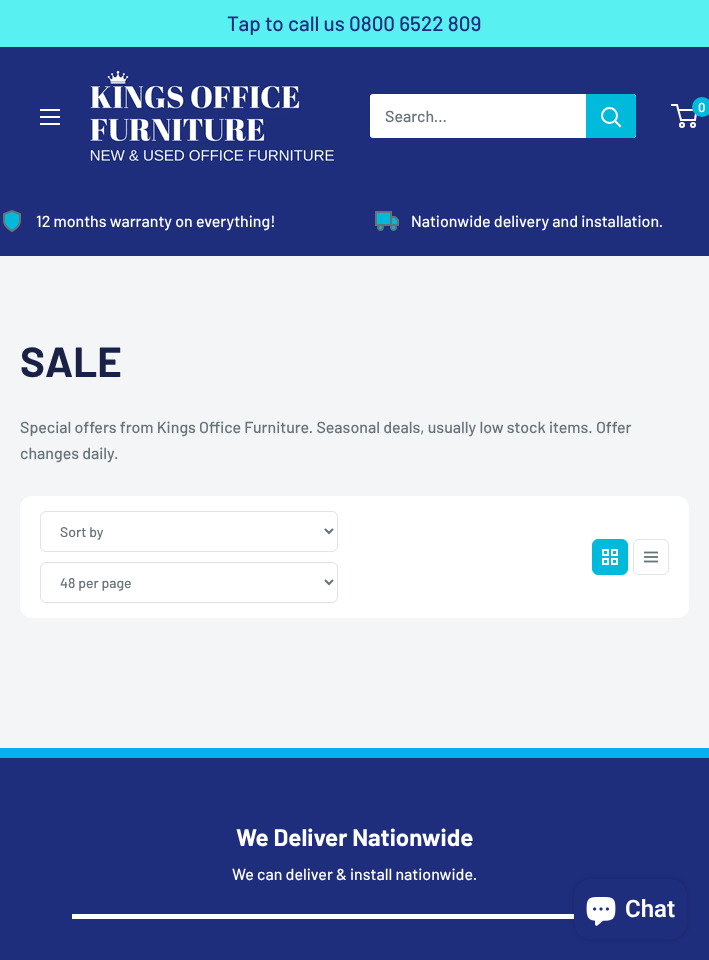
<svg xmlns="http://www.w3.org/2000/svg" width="709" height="960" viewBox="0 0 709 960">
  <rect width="100%" height="100%" fill="rgb(243,245,246)"/>
  <rect x="0" y="0" width="709" height="47" fill="rgb(88,240,240)"/>
  <text x="227" y="31" font-family="Barlow" font-size="20.75" font-weight="500" fill="rgb(31,45,125)">Tap to call us 0800 6522 809</text>
  <rect x="0" y="47" width="709" height="209" fill="rgb(31,45,125)"/>
  <image x="89" y="70" width="246" height="93" href="pic1.png"/>
  <circle cx="682" cy="125" r="2" fill="none" stroke="rgb(255,255,255)" stroke-width="2"/>
  <circle cx="693" cy="125" r="2" fill="none" stroke="rgb(255,255,255)" stroke-width="2"/>
  <path d="M678.5 110H696.5L695 120H681L677 105H671" fill="none" stroke="rgb(255,255,255)" stroke-width="2"/>
  <circle cx="702" cy="107" r="10" fill="rgb(0,186,219)"/>
  <text x="698" y="112" font-family="Barlow" font-size="13" font-weight="600" fill="rgb(255,255,255)">0</text>
  <image x="40" y="109" width="20" height="16" href="pic2.png"/>
  <rect x="370" y="94" width="266" height="44" rx="3" fill="rgb(255,255,255)"/>
  <text x="385" y="122" font-family="Barlow" font-size="16" font-weight="500" fill="rgb(103,114,121)">Search...</text>
  <path d="M586 94H633C634.5 94 636 95.5 636 97V135C636 136.5 634.5 138 633 138H586Z" fill="rgb(0,186,219)"/>
  <path d="M620 126L615 121" fill="none" stroke="rgb(255,255,255)" stroke-width="2" stroke-linecap="square"/>
  <circle cx="609.5" cy="115.5" r="7.5" fill="none" stroke="rgb(255,255,255)" stroke-width="2"/>
  <image x="3" y="210" width="18" height="22" href="pic3.png"/>
  <text x="36" y="227" font-family="Barlow" font-size="16" font-weight="500" fill="rgb(255,255,255)">12 months warranty on everything!</text>
  <image x="375" y="211" width="24" height="20" href="pic4.png"/>
  <text x="411" y="227" font-family="Barlow" font-size="16" font-weight="500" fill="rgb(255,255,255)">Nationwide delivery and installation.</text>
  <text x="20" y="377" font-family="Barlow" font-size="42" font-weight="bold" fill="rgb(26,33,70)">SALE</text>
  <g font-family="Barlow" font-size="16" font-weight="500" fill="rgb(103,114,121)">
    <text>
      <tspan x="20" y="433">Special offers from Kings Office Furniture. Seasonal deals, usually low stock items. Offer</tspan>
      <tspan x="20" y="459">changes daily.</tspan>
    </text>
  </g>
  <rect x="20" y="496" width="669" height="122" rx="12" fill="rgb(255,255,255)"/>
  <rect x="40.5" y="511.5" width="297" height="40" rx="5.5" fill="none" stroke="rgb(225,227,228)"/>
  <path d="M325 529L329 533L333 529" fill="none" stroke="rgb(103,114,121)" stroke-width="2"/>
  <text x="60" y="537" font-family="Barlow" font-size="14" font-weight="500" fill="rgb(103,114,121)">Sort by</text>
  <rect x="40.5" y="562.5" width="297" height="40" rx="5.5" fill="none" stroke="rgb(225,227,228)"/>
  <path d="M325 580L329 584L333 580" fill="none" stroke="rgb(103,114,121)" stroke-width="2"/>
  <text x="60" y="588" font-family="Barlow" font-size="14" font-weight="500" fill="rgb(103,114,121)">48 per page</text>
  <rect x="592.5" y="539.5" width="35" height="35" rx="5.5" fill="rgb(0,186,219)" stroke="rgb(0,186,219)"/>
  <image x="602" y="549" width="16" height="16" href="pic5.png"/>
  <rect x="633.5" y="539.5" width="35" height="35" rx="5.5" fill="none" stroke="rgb(225,227,228)"/>
  <path d="M644 552.5H658" fill="none" stroke="rgb(103,114,121)" stroke-width="1.8"/>
  <rect x="644" y="556" width="14" height="2" fill="rgb(118,128,134)"/>
  <path d="M644 561.5H658" fill="none" stroke="rgb(103,114,121)" stroke-width="1.8"/>
  <rect x="0" y="758" width="709" height="202" fill="rgb(31,45,125)"/>
  <rect x="0" y="748" width="709" height="10" fill="rgb(5,175,242)"/>
  <rect x="72" y="914" width="502" height="5" fill="rgb(255,255,255)"/>
  <text x="236" y="846" font-family="Barlow" font-size="24" font-weight="bold" fill="rgb(255,255,255)">We Deliver Nationwide</text>
  <text x="232" y="880" font-family="Barlow" font-size="16" font-weight="500" fill="rgb(255,255,255)">We can deliver &amp; install nationwide.</text>
  <rect x="574" y="879" width="113" height="60" rx="16" fill="rgba(0,0,0,0.15)" filter="blur(2.5px)"/>
  <rect x="574" y="879" width="113" height="60" rx="16" fill="rgb(31,45,125)"/>
  <image x="586" y="897" width="30" height="29" href="pic6.png"/>
  <text x="625" y="917" font-family="Roboto" font-size="24" font-weight="600" fill="rgb(255,255,255)">Chat</text>
</svg>
